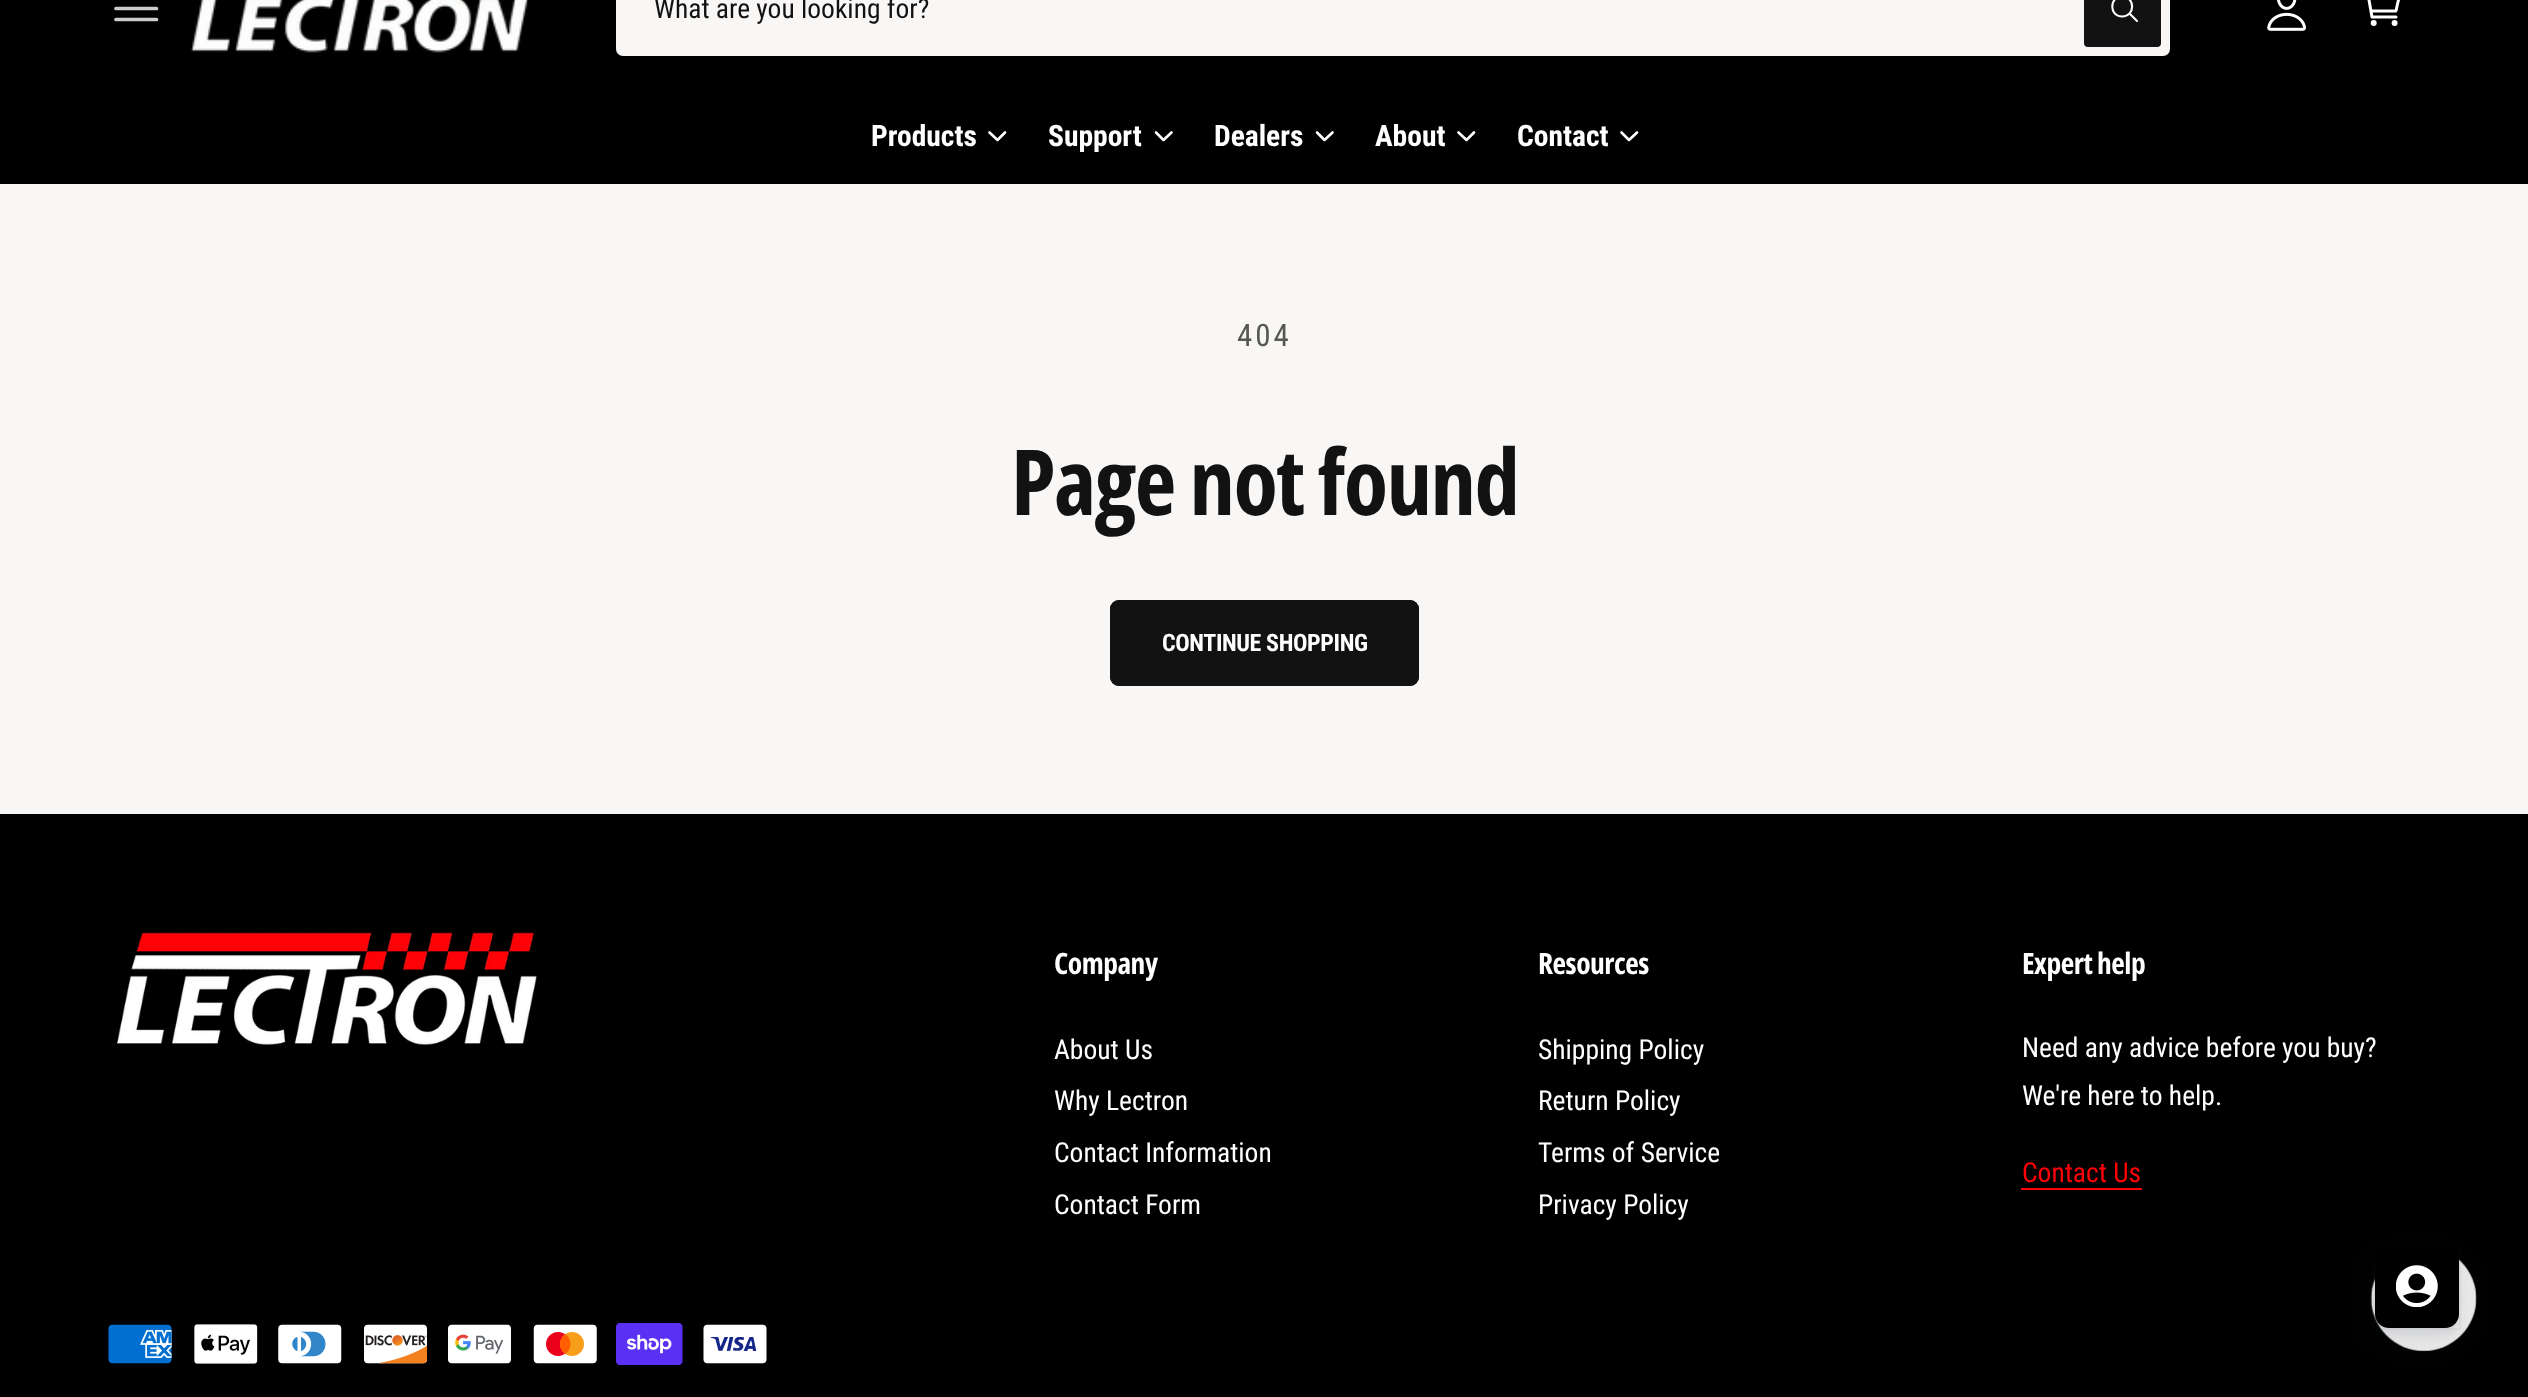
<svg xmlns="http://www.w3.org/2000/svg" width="2528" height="1397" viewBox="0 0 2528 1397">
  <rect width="100%" height="100%" fill="rgb(249,247,246)"/>
  <rect x="0" y="0" width="2528" height="184" fill="rgb(0,0,0)"/>
  <path d="M116-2.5H156.5M116 8.5H156.5M116 19.5H156.5" fill="none" stroke="rgb(204,204,204)" stroke-width="3.7" stroke-linecap="round"/>
  <image x="190" y="0" width="339" height="53" href="pic1.png"/>
  <rect x="616" y="-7" width="1554" height="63" rx="7" fill="rgb(249,247,246)"/>
  <text x="654" y="18" font-family="Roboto Condensed" font-size="27.5" fill="rgb(18,18,18)">What are you looking for?</text>
  <rect x="2084" y="-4" width="77" height="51" rx="4" fill="rgb(18,18,18)"/>
  <path d="M2122-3.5C2109-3.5 2109 16.5 2122 16.5C2135.5 16.5 2135.5-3.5 2122-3.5Z" fill="none" stroke="rgb(255,255,255)" stroke-width="2.1"/>
  <path d="M2130 14L2137 21" fill="none" stroke="rgb(255,255,255)" stroke-width="2.1" stroke-linecap="round"/>
  <image x="2267" y="0" width="39" height="31" href="pic2.png"/>
  <circle cx="2373.7" cy="23.1" r="1.5" fill="none" stroke="rgb(255,255,255)" stroke-width="3"/>
  <circle cx="2394.6" cy="23.1" r="1.5" fill="none" stroke="rgb(255,255,255)" stroke-width="3"/>
  <path d="M2361.5-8.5H2367.5L2372 17H2396M2372 11H2391.5C2396.5 11 2396 12 2396.5 8.5L2397.5 4C2399.5-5 2401-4 2393.5-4H2369" fill="none" stroke="rgb(255,255,255)" stroke-width="3" stroke-linecap="round" stroke-linejoin="round"/>
  <text x="871" y="146" font-family="Roboto Condensed" font-size="29.5" font-weight="bold" fill="rgb(255,255,255)">Products</text>
  <path d="M989.5 132.5L997.5 140L1005 132.5" fill="none" stroke="rgb(255,255,255)" stroke-width="2.6" stroke-linecap="round" stroke-linejoin="round"/>
  <text x="1048" y="146" font-family="Roboto Condensed" font-size="29.5" font-weight="bold" fill="rgb(255,255,255)">Support</text>
  <path d="M1156 132.5L1163.5 140L1171.5 132.5" fill="none" stroke="rgb(255,255,255)" stroke-width="2.6" stroke-linecap="round" stroke-linejoin="round"/>
  <text x="1214" y="146" font-family="Roboto Condensed" font-size="29.5" font-weight="bold" fill="rgb(255,255,255)">Dealers</text>
  <path d="M1317 132.5L1324.5 140L1332.5 132.5" fill="none" stroke="rgb(255,255,255)" stroke-width="2.6" stroke-linecap="round" stroke-linejoin="round"/>
  <text x="1375" y="146" font-family="Roboto Condensed" font-size="29.5" font-weight="bold" fill="rgb(255,255,255)">About</text>
  <path d="M1458.5 132.5L1466.5 140L1474 132.5" fill="none" stroke="rgb(255,255,255)" stroke-width="2.6" stroke-linecap="round" stroke-linejoin="round"/>
  <text x="1517" y="146" font-family="Roboto Condensed" font-size="29.5" font-weight="bold" fill="rgb(255,255,255)">Contact</text>
  <path d="M1621.5 132.5L1629 140L1637 132.5" fill="none" stroke="rgb(255,255,255)" stroke-width="2.6" stroke-linecap="round" stroke-linejoin="round"/>
  <text x="1237" y="346" font-family="Roboto Condensed" font-size="31" letter-spacing="3" fill="rgb(87,87,86)">404</text>
  <text x="1011" y="515" font-family="Open Sans Condensed" font-size="91" font-weight="bold" letter-spacing="-1.6" fill="rgb(18,18,18)">Page not found</text>
  <rect x="1110" y="600" width="309" height="86" rx="9" fill="rgb(18,18,18)"/>
  <rect x="1111" y="601" width="307" height="84" rx="8" fill="none" stroke="rgb(18,18,18)" stroke-width="2"/>
  <text x="1162" y="651" font-family="Roboto Condensed" font-size="24" font-weight="bold" letter-spacing="-0.4" fill="rgb(255,255,255)">CONTINUE SHOPPING</text>
  <rect x="0" y="814" width="2528" height="583" fill="rgb(0,0,0)"/>
  <image x="117" y="932" width="420" height="113" href="pic3.png"/>
  <text x="1054" y="974" font-family="Open Sans Condensed" font-size="29.5" font-weight="bold" letter-spacing="-0.5" fill="rgb(255,255,255)">Company</text>
  <g font-family="Roboto Condensed" font-size="27.5" fill="rgb(255,255,255)">
    <text>
      <tspan x="1054" y="1059">About Us</tspan>
      <tspan x="1054" y="1110">Why Lectron</tspan>
      <tspan x="1054" y="1162">Contact Information</tspan>
      <tspan x="1054" y="1214">Contact Form</tspan>
    </text>
  </g>
  <text x="1538" y="974" font-family="Open Sans Condensed" font-size="29.5" font-weight="bold" letter-spacing="-0.5" fill="rgb(255,255,255)">Resources</text>
  <g font-family="Roboto Condensed" font-size="27.5" fill="rgb(255,255,255)">
    <text>
      <tspan x="1538" y="1059">Shipping Policy</tspan>
      <tspan x="1538" y="1110">Return Policy</tspan>
      <tspan x="1538" y="1162">Terms of Service</tspan>
      <tspan x="1538" y="1214">Privacy Policy</tspan>
    </text>
  </g>
  <text x="2022" y="974" font-family="Open Sans Condensed" font-size="29.5" font-weight="bold" letter-spacing="-0.5" fill="rgb(255,255,255)">Expert help</text>
  <g font-family="Roboto Condensed" font-size="27.5" fill="rgb(255,255,255)">
    <text>
      <tspan x="2022" y="1057">Need any advice before you buy?</tspan>
      <tspan x="2022" y="1105">We're here to help.</tspan>
    </text>
  </g>
  <text x="2022" y="1182" font-family="Roboto Condensed" font-size="27.5" fill="rgb(255,1,7)">Contact Us</text>
  <rect x="2021" y="1188" width="121" height="2" fill="rgb(255,1,7)"/>
  <image x="108" y="1324" width="64" height="40" href="pic4.png"/>
  <image x="194" y="1324" width="64" height="40" href="pic5.png"/>
  <image x="278" y="1324" width="64" height="40" href="pic6.png"/>
  <image x="364" y="1324" width="64" height="40" href="pic7.png"/>
  <image x="448" y="1324" width="63" height="40" href="pic8.png"/>
  <image x="533" y="1324" width="64" height="40" href="pic9.png"/>
  <image x="616" y="1323" width="67" height="42" href="pic10.png"/>
  <image x="703" y="1324" width="64" height="40" href="pic11.png"/>
  <image x="2370" y="1258" width="107" height="94" href="pic13.png"/>
  <rect x="2375" y="1258" width="84" height="84" rx="14" fill="rgba(55,63,71,0.08)" filter="blur(21px)"/>
  <rect x="2375" y="1251" width="84" height="84" rx="14" fill="rgba(55,63,71,0.08)" filter="blur(3.5px)"/>
  <rect x="2374" y="1244" width="86" height="85" fill="none" stroke="rgba(55,63,71,0.04)" stroke-width="2"/>
  <rect x="2375" y="1244" width="84" height="84" rx="14" fill="rgb(0,0,0)"/>
  <image x="2396" y="1265" width="42" height="42" href="pic12.png"/>
</svg>
